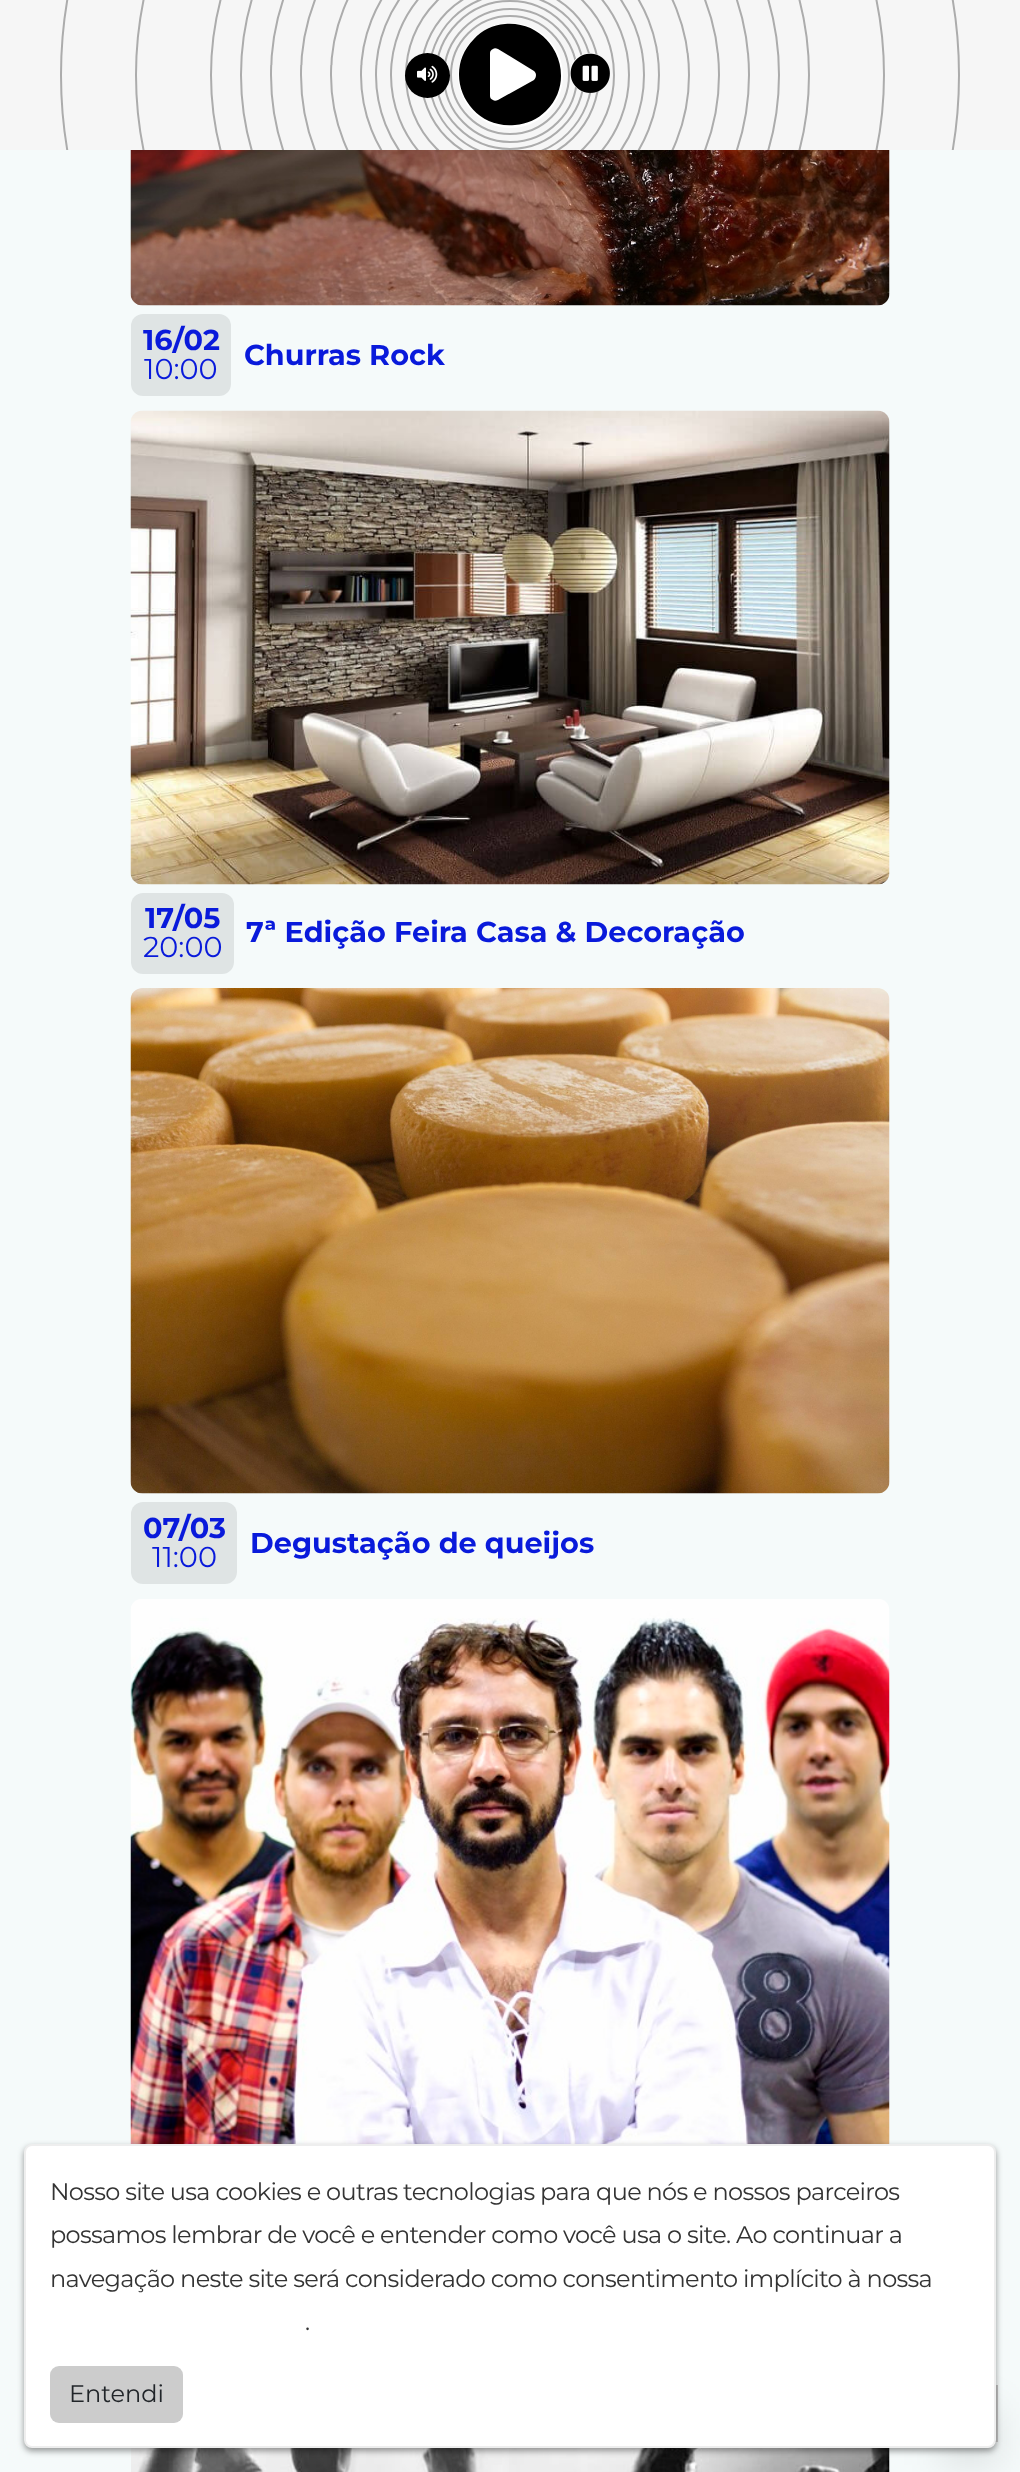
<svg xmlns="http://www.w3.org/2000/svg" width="1020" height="2472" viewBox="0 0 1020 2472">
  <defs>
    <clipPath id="clip1"><rect x="0" y="0" width="1020" height="150"/></clipPath>
  </defs>
  <rect width="100%" height="100%" fill="rgb(245,250,250)"/>
  <rect x="0" y="0" width="1020" height="150" fill="rgb(246,246,246)"/>
  <circle cx="510" cy="75" r="59" fill="none" stroke="rgb(172,172,172)" stroke-width="2"/>
  <circle cx="510.5" cy="75.5" r="66.5" fill="none" stroke="rgb(172,172,172)" stroke-width="2"/>
  <circle cx="510" cy="75" r="74" fill="none" stroke="rgb(172,172,172)" stroke-width="2"/>
  <image x="130" y="150" width="760" height="156" href="pic3.png"/>
  <g clip-path="url(#clip1)">
    <circle cx="510.5" cy="75.5" r="81.5" fill="none" stroke="rgb(172,172,172)" stroke-width="2"/>
    <circle cx="510" cy="75" r="89" fill="none" stroke="rgb(172,172,172)" stroke-width="2"/>
    <circle cx="510" cy="75" r="104" fill="none" stroke="rgb(172,172,172)" stroke-width="2"/>
    <circle cx="510" cy="75" r="119" fill="none" stroke="rgb(172,172,172)" stroke-width="2"/>
    <circle cx="510" cy="75" r="134" fill="none" stroke="rgb(172,172,172)" stroke-width="2"/>
    <circle cx="510" cy="75" r="149" fill="none" stroke="rgb(172,172,172)" stroke-width="2"/>
    <circle cx="510" cy="75" r="179" fill="none" stroke="rgb(172,172,172)" stroke-width="2"/>
    <circle cx="510" cy="75" r="209" fill="none" stroke="rgb(172,172,172)" stroke-width="2"/>
    <circle cx="510" cy="75" r="239" fill="none" stroke="rgb(172,172,172)" stroke-width="2"/>
  </g>
  <text x="244" y="365" font-family="Montserrat" font-size="28.75" font-weight="bold" fill="rgb(9,26,219)">Churras Rock</text>
  <g clip-path="url(#clip1)">
    <circle cx="510" cy="75" r="269" fill="none" stroke="rgb(172,172,172)" stroke-width="2"/>
  </g>
  <rect x="131" y="314" width="100" height="82" rx="12" fill="rgb(223,228,228)"/>
  <text x="143" y="350" font-family="Montserrat" font-size="28.75" font-weight="bold" fill="rgb(9,26,219)">16/02</text>
  <text x="144" y="379" font-family="Montserrat" font-size="28.75" fill="rgb(9,26,219)">10:00</text>
  <g clip-path="url(#clip1)">
    <circle cx="510" cy="75" r="299" fill="none" stroke="rgb(172,172,172)" stroke-width="2"/>
  </g>
  <image x="130" y="410" width="760" height="475" href="pic4.png"/>
  <g clip-path="url(#clip1)">
    <circle cx="510" cy="75" r="374" fill="none" stroke="rgb(172,172,172)" stroke-width="2"/>
    <circle cx="510" cy="75" r="449" fill="none" stroke="rgb(172,172,172)" stroke-width="2"/>
  </g>
  <circle cx="427.5" cy="75.5" r="22.5" fill="rgb(0,0,0)"/>
  <image x="417" y="65" width="21" height="18" href="pic1.png"/>
  <circle cx="510.5" cy="75.5" r="52.5" fill="rgb(255,255,255)"/>
  <path d="M474 39C482 30 493 25 505 24C552 20 580 77 546 111C538 119 527 124 515 125C468 130 440 73 474 39ZM534 80C535 79 536 77 536 75C536 73 535 72 534 71L498 49C496 48 494 48 493 49C491 50 490 51 490 53V96C490 98 491 99 493 100C494 101 496 101 498 100Z" fill="rgb(0,0,0)"/>
  <rect x="570" y="53" width="39" height="40" rx="19.5" fill="rgb(255,255,255)"/>
  <image x="570" y="53" width="40" height="40" href="pic2.png"/>
  <rect x="131" y="893" width="103" height="81" rx="12" fill="rgb(223,228,228)"/>
  <text x="145" y="928" font-family="Montserrat" font-size="28.75" font-weight="bold" fill="rgb(9,26,219)">17/05</text>
  <text x="143" y="957" font-family="Montserrat" font-size="28.75" fill="rgb(9,26,219)">20:00</text>
  <text x="246" y="942" font-family="Montserrat" font-size="28.75" font-weight="bold" fill="rgb(9,26,219)">7ª Edição Feira Casa &amp; Decoração</text>
  <image x="130" y="988" width="760" height="506" href="pic5.png"/>
  <rect x="131" y="1502" width="106" height="82" rx="12" fill="rgb(223,228,228)"/>
  <text x="143" y="1538" font-family="Montserrat" font-size="28.75" font-weight="bold" fill="rgb(9,26,219)">07/03</text>
  <text x="152" y="1567" font-family="Montserrat" font-size="28.75" fill="rgb(9,26,219)">11:00</text>
  <text x="250" y="1553" font-family="Montserrat" font-size="28.75" font-weight="bold" fill="rgb(9,26,219)">Degustação de queijos</text>
  <image x="130" y="1599" width="760" height="545" href="pic6.png"/>
  <image x="131" y="2448" width="759" height="24" href="pic7.png"/>
  <rect x="941" y="2408" width="57" height="57" fill="rgba(0,0,0,0.1)" filter="blur(19px)"/>
  <rect x="942" y="2386" width="55" height="55" fill="none" stroke="rgb(194,194,194)" stroke-width="2"/>
  <rect x="24" y="2147" width="972" height="304" rx="8" fill="rgba(0,0,0,0.4)" filter="blur(3px)"/>
  <rect x="25" y="2145" width="970" height="302" rx="7" fill="rgb(255,255,255)" stroke="rgb(238,238,238)" stroke-width="2"/>
  <g font-family="Montserrat" font-size="24" letter-spacing="-0.68" fill="rgb(51,51,51)">
    <text>
      <tspan x="50" y="2200">Nosso site usa cookies e outras tecnologias para que nós e nossos parceiros</tspan>
      <tspan x="50" y="2243">possamos lembrar de você e entender como você usa o site. Ao continuar a</tspan>
      <tspan x="50" y="2287">navegação neste site será considerado como consentimento implícito à nossa</tspan>
    </text>
    <text x="305" y="2330">.</text>
  </g>
  <rect x="50" y="2366" width="133" height="57" rx="9" fill="rgb(204,204,204)"/>
  <text x="69" y="2402" font-family="Montserrat" font-size="24" fill="rgb(33,37,41)">Entendi</text>
</svg>
